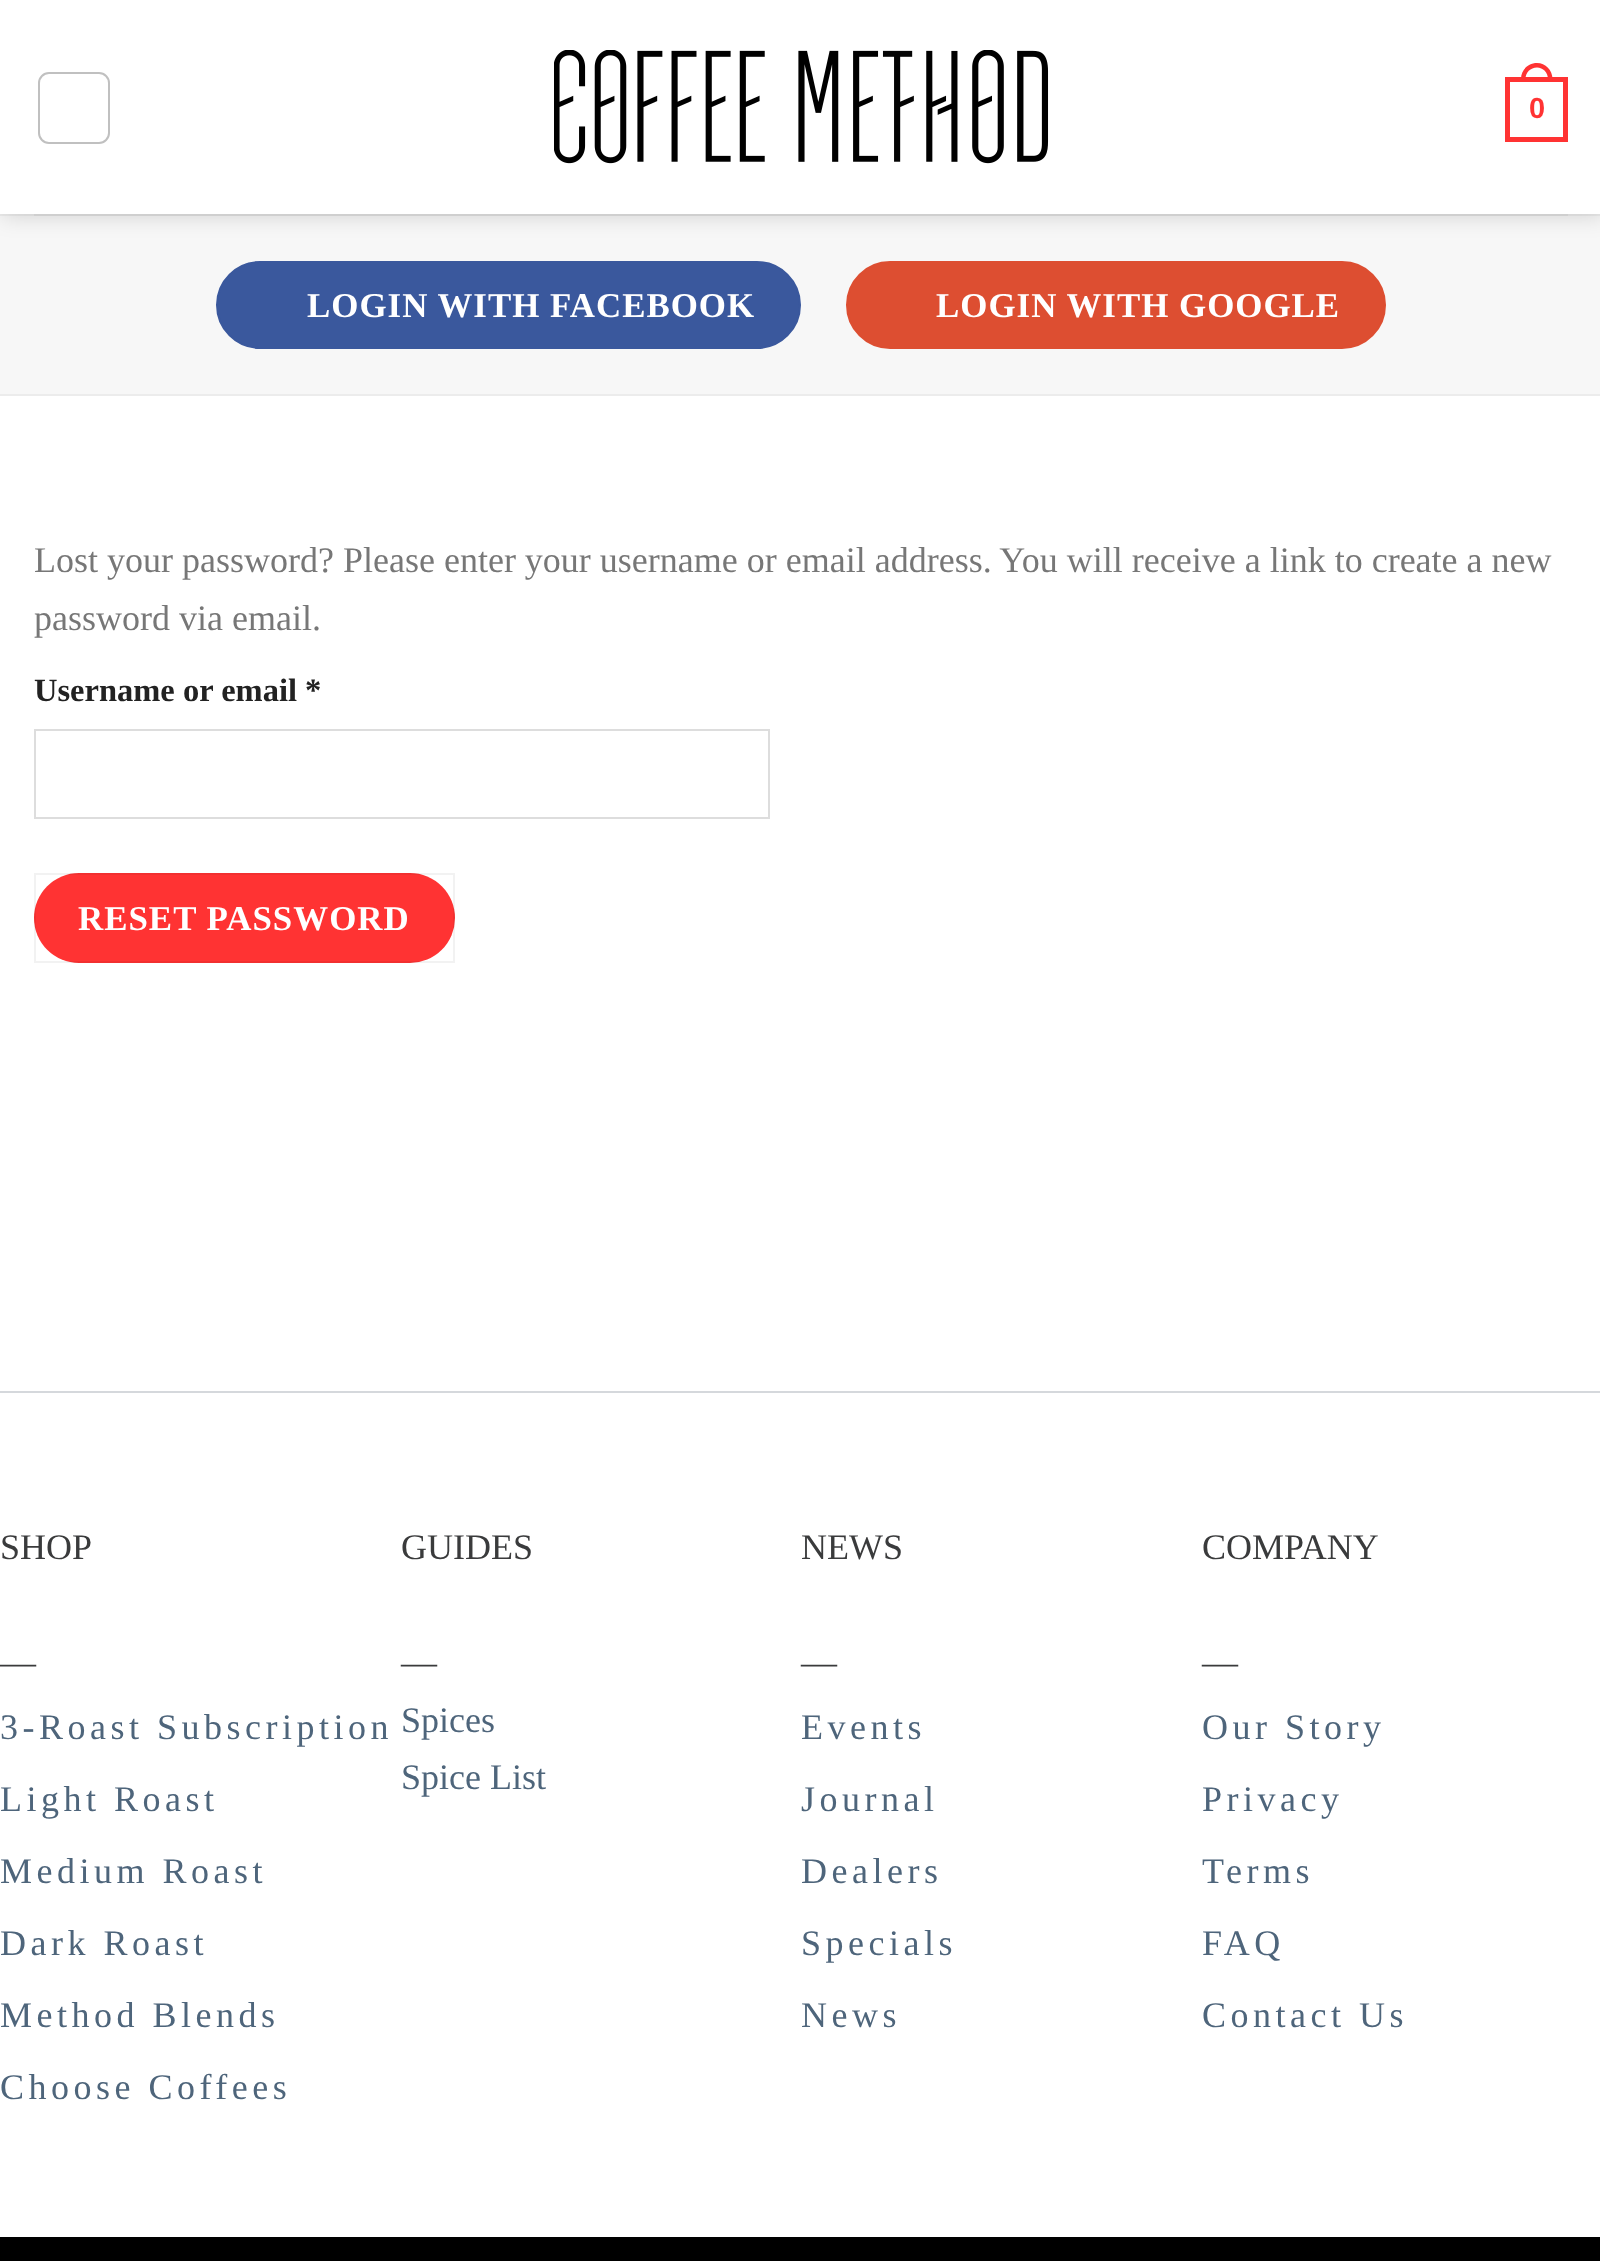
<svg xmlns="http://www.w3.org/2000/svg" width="1600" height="2261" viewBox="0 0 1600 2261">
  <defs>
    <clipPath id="clip1"><path d="M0 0H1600V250H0ZM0 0H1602V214H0Z" clip-rule="evenodd"/></clipPath>
  </defs>
  <rect width="100%" height="100%" fill="rgb(255,255,255)"/>
  <rect x="0" y="216" width="1600" height="178" fill="rgb(247,247,247)"/>
  <rect x="0" y="214" width="1600" height="2" fill="rgb(236,236,236)"/>
  <g clip-path="url(#clip1)">
    <rect x="2" y="2" width="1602" height="214" fill="rgba(0,0,0,0.15)" filter="blur(11px)"/>
  </g>
  <rect x="39" y="73" width="70" height="70" rx="10" fill="none" stroke="rgb(192,192,192)" stroke-width="2"/>
  <image x="554" y="50" width="495" height="114" href="pic1.png"/>
  <rect x="1507.5" y="79.5" width="58" height="60" fill="none" stroke="rgb(255,51,51)" stroke-width="5"/>
  <path d="M1537 63C1545.5 63 1552.5 70 1552.5 79V81H1521V79C1521 70 1528 63 1537 63ZM1537 67.5C1543 67.5 1548 72.5 1548 79V81H1525.5V79C1525.5 72.5 1530.5 67.5 1537 67.5Z" fill="rgb(255,51,51)" fill-rule="evenodd"/>
  <text x="1529" y="118" font-family="Liberation Sans" font-size="29" font-weight="bold" fill="rgb(255,51,51)">0</text>
  <rect x="34" y="214" width="1534" height="2" fill="rgb(207,207,207)"/>
  <rect x="7" y="213" width="1592" height="1" fill="rgba(255,255,255,0.7)"/>
  <rect x="0" y="394" width="1600" height="2" fill="rgb(236,236,236)"/>
  <rect x="217" y="262" width="583" height="86" rx="43" fill="rgb(58,88,157)" stroke="rgb(58,88,157)" stroke-width="2"/>
  <text x="307" y="317" font-family="Liberation Serif" font-size="34.9" font-weight="bold" letter-spacing="1" fill="rgb(255,255,255)">LOGIN WITH FACEBOOK</text>
  <rect x="847" y="262" width="538" height="86" rx="43" fill="rgb(221,78,49)" stroke="rgb(221,78,49)" stroke-width="2"/>
  <text x="936" y="317" font-family="Liberation Serif" font-size="34.9" font-weight="bold" letter-spacing="1" fill="rgb(255,255,255)">LOGIN WITH GOOGLE</text>
  <g font-family="Liberation Serif" font-size="36" fill="rgb(119,119,119)">
    <text>
      <tspan x="34" y="572">Lost your password? Please enter your username or email address. You will receive a link to create a new</tspan>
      <tspan x="34" y="630">password via email.</tspan>
    </text>
  </g>
  <text x="34" y="701" font-family="Liberation Serif" font-size="32.5" font-weight="bold" fill="rgb(34,34,34)">Username or email *</text>
  <rect x="35" y="730" width="734" height="88" fill="none" stroke="rgb(221,221,221)" stroke-width="2"/>
  <rect x="34" y="873" width="421" height="90" rx="45" fill="rgb(255,51,51)"/>
  <rect x="35" y="874" width="419" height="88" fill="none" stroke="rgba(0,0,0,0.05)" stroke-width="2"/>
  <text x="78" y="930" font-family="Liberation Serif" font-size="34.9" font-weight="bold" letter-spacing="1" fill="rgb(255,255,255)">RESET PASSWORD</text>
  <rect x="0" y="1391" width="1600" height="2" fill="rgb(213,216,220)"/>
  <g font-family="Liberation Serif" font-size="36" fill="rgb(58,59,60)">
    <text x="0" y="1559">SHOP</text>
    <text x="0" y="1674">—</text>
  </g>
  <g font-family="Liberation Serif" font-size="36" letter-spacing="4.5" fill="rgb(78,101,123)">
    <text x="0" y="1739">3-Roast Subscription</text>
    <text x="0" y="1811">Light Roast</text>
    <text x="0" y="1883">Medium Roast</text>
    <text x="0" y="1955">Dark Roast</text>
    <text x="0" y="2027">Method Blends</text>
    <text x="0" y="2099">Choose Coffees</text>
  </g>
  <g font-family="Liberation Serif" font-size="36" fill="rgb(58,59,60)">
    <text x="401" y="1559">GUIDES</text>
    <text x="401" y="1674">—</text>
  </g>
  <g font-family="Liberation Serif" font-size="36" fill="rgb(78,101,123)">
    <text>
      <tspan x="401" y="1732">Spices</tspan>
      <tspan x="401" y="1789">Spice List</tspan>
    </text>
  </g>
  <g font-family="Liberation Serif" font-size="36" fill="rgb(58,59,60)">
    <text x="801" y="1559">NEWS</text>
    <text x="801" y="1674">—</text>
  </g>
  <g font-family="Liberation Serif" font-size="36" letter-spacing="4.5" fill="rgb(78,101,123)">
    <text x="801" y="1739">Events</text>
    <text x="801" y="1811">Journal</text>
    <text x="801" y="1883">Dealers</text>
    <text x="801" y="1955">Specials</text>
    <text x="801" y="2027">News</text>
  </g>
  <g font-family="Liberation Serif" font-size="36" fill="rgb(58,59,60)">
    <text x="1202" y="1559">COMPANY</text>
    <text x="1202" y="1674">—</text>
  </g>
  <g font-family="Liberation Serif" font-size="36" letter-spacing="4.5" fill="rgb(78,101,123)">
    <text x="1202" y="1739">Our Story</text>
    <text x="1202" y="1811">Privacy</text>
    <text x="1202" y="1883">Terms</text>
    <text x="1202" y="1955">FAQ</text>
    <text x="1202" y="2027">Contact Us</text>
  </g>
  <rect x="0" y="2237" width="1600" height="24" fill="rgb(0,0,0)"/>
</svg>
